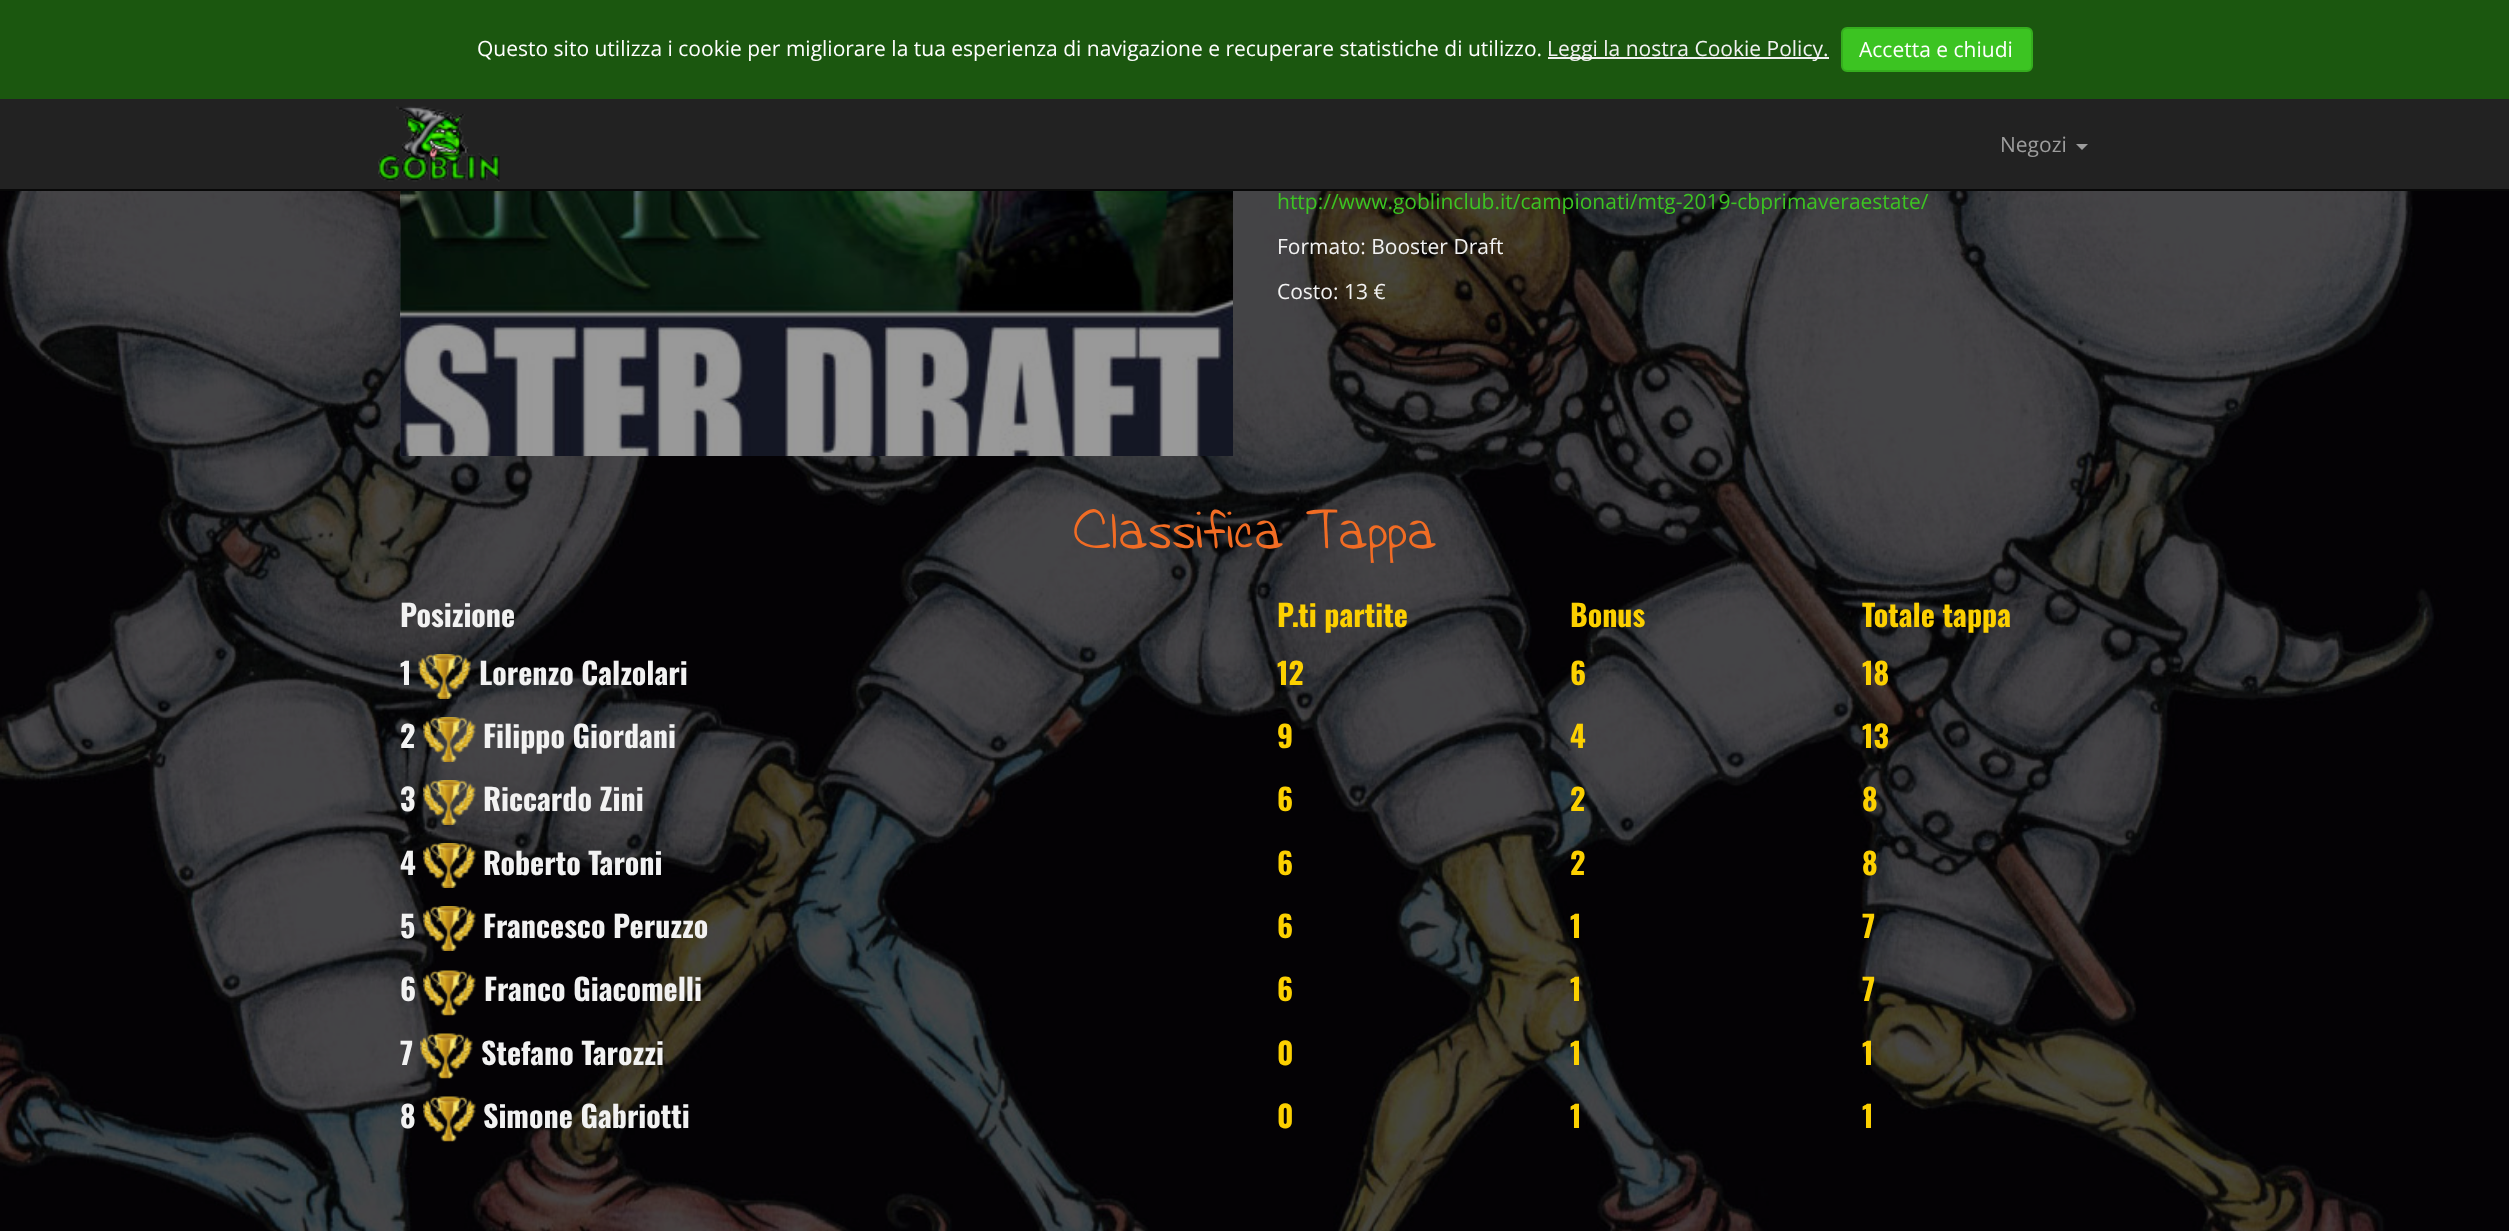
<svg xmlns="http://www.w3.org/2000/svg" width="2509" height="1231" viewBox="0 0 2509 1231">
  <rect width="100%" height="100%" fill="rgb(255,255,255)"/>
  <rect x="0" y="99" width="2509" height="90" fill="rgb(34,34,34)"/>
  <rect x="0" y="189" width="2509" height="2" fill="rgb(8,8,8)"/>
  <rect x="0" y="0" width="2509" height="99" fill="rgb(27,87,15)"/>
  <text x="477" y="56" font-family="Open Sans" font-size="21" fill="rgb(255,255,255)">Questo sito utilizza i cookie per migliorare la tua esperienza di navigazione e recuperare statistiche di utilizzo.</text>
  <rect x="1548" y="57" width="281" height="2" fill="rgb(242,242,242)"/>
  <text x="1547" y="56" font-family="Open Sans" font-size="21" fill="rgb(242,242,242)">Leggi la nostra Cookie Policy.</text>
  <rect x="1842" y="28" width="190" height="43" rx="5" fill="rgb(60,196,34)" stroke="rgb(53,174,30)" stroke-width="2"/>
  <text x="1859" y="57" font-family="Open Sans" font-size="21" fill="rgb(255,255,255)">Accetta e chiudi</text>
  <image x="378" y="106" width="122" height="76" href="pic1.png"/>
  <text x="2000" y="152" font-family="Open Sans" font-size="21" fill="rgb(157,157,157)">Negozi</text>
  <path d="M2076 144H2088L2082 150Z" fill="rgb(157,157,157)"/>
  <image x="0" y="191" width="2509" height="1040" href="pic2.png"/>
  <image x="400" y="191" width="833" height="265" href="pic3.png"/>
  <text x="1277" y="209" font-family="Open Sans" font-size="21" fill="rgb(60,196,34)">http://www.goblinclub.it/campionati/mtg-2019-cbprimaveraestate/</text>
  <g font-family="Open Sans" font-size="21" fill="rgb(242,242,242)">
    <text x="1277" y="254">Formato: Booster Draft</text>
    <text x="1277" y="299">Costo: 13 €</text>
  </g>
  <text x="1073" y="548" font-family="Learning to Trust" font-size="42" fill="rgb(241,108,36)">Classifica Tappa</text>
  <text x="400" y="627" font-family="Oswald" font-size="30" font-weight="bold" fill="rgb(242,242,242)">Posizione</text>
  <g font-family="Oswald" font-size="30" font-weight="bold" fill="rgb(252,208,0)">
    <text x="1277" y="627">P.ti partite</text>
    <text x="1570" y="627">Bonus</text>
    <text x="1862" y="627">Totale tappa</text>
  </g>
  <text x="400" y="685" font-family="Oswald" font-size="30" font-weight="bold" fill="rgb(242,242,242)">1</text>
  <image x="418" y="654" width="53" height="45" href="pic4.png"/>
  <text x="479" y="685" font-family="Oswald" font-size="30" font-weight="bold" fill="rgb(242,242,242)">Lorenzo Calzolari</text>
  <g font-family="Oswald" font-size="30" font-weight="bold" fill="rgb(252,208,0)">
    <text x="1277" y="685">12</text>
    <text x="1570" y="685">6</text>
    <text x="1862" y="685">18</text>
  </g>
  <text x="400" y="748" font-family="Oswald" font-size="30" font-weight="bold" fill="rgb(242,242,242)">2</text>
  <image x="423" y="717" width="53" height="45" href="pic5.png"/>
  <text x="483" y="748" font-family="Oswald" font-size="30" font-weight="bold" fill="rgb(242,242,242)">Filippo Giordani</text>
  <g font-family="Oswald" font-size="30" font-weight="bold" fill="rgb(252,208,0)">
    <text x="1277" y="748">9</text>
    <text x="1570" y="748">4</text>
    <text x="1862" y="748">13</text>
  </g>
  <text x="400" y="811" font-family="Oswald" font-size="30" font-weight="bold" fill="rgb(242,242,242)">3</text>
  <image x="423" y="780" width="53" height="45" href="pic6.png"/>
  <text x="483" y="811" font-family="Oswald" font-size="30" font-weight="bold" fill="rgb(242,242,242)">Riccardo Zini</text>
  <g font-family="Oswald" font-size="30" font-weight="bold" fill="rgb(252,208,0)">
    <text x="1277" y="811">6</text>
    <text x="1570" y="811">2</text>
    <text x="1862" y="811">8</text>
  </g>
  <text x="400" y="875" font-family="Oswald" font-size="30" font-weight="bold" fill="rgb(242,242,242)">4</text>
  <image x="423" y="843" width="53" height="45" href="pic7.png"/>
  <text x="483" y="875" font-family="Oswald" font-size="30" font-weight="bold" fill="rgb(242,242,242)">Roberto Taroni</text>
  <g font-family="Oswald" font-size="30" font-weight="bold" fill="rgb(252,208,0)">
    <text x="1277" y="875">6</text>
    <text x="1570" y="875">2</text>
    <text x="1862" y="875">8</text>
  </g>
  <text x="400" y="938" font-family="Oswald" font-size="30" font-weight="bold" fill="rgb(242,242,242)">5</text>
  <image x="423" y="906" width="53" height="45" href="pic8.png"/>
  <text x="483" y="938" font-family="Oswald" font-size="30" font-weight="bold" fill="rgb(242,242,242)">Francesco Peruzzo</text>
  <g font-family="Oswald" font-size="30" font-weight="bold" fill="rgb(252,208,0)">
    <text x="1277" y="938">6</text>
    <text x="1570" y="938">1</text>
    <text x="1862" y="938">7</text>
  </g>
  <text x="400" y="1001" font-family="Oswald" font-size="30" font-weight="bold" fill="rgb(242,242,242)">6</text>
  <image x="423" y="970" width="53" height="46" href="pic9.png"/>
  <text x="484" y="1001" font-family="Oswald" font-size="30" font-weight="bold" fill="rgb(242,242,242)">Franco Giacomelli</text>
  <g font-family="Oswald" font-size="30" font-weight="bold" fill="rgb(252,208,0)">
    <text x="1277" y="1001">6</text>
    <text x="1570" y="1001">1</text>
    <text x="1862" y="1001">7</text>
  </g>
  <text x="400" y="1065" font-family="Oswald" font-size="30" font-weight="bold" fill="rgb(242,242,242)">7</text>
  <image x="420" y="1033" width="53" height="46" href="pic10.png"/>
  <text x="481" y="1065" font-family="Oswald" font-size="30" font-weight="bold" fill="rgb(242,242,242)">Stefano Tarozzi</text>
  <g font-family="Oswald" font-size="30" font-weight="bold" fill="rgb(252,208,0)">
    <text x="1277" y="1065">0</text>
    <text x="1570" y="1065">1</text>
    <text x="1862" y="1065">1</text>
  </g>
  <text x="400" y="1128" font-family="Oswald" font-size="30" font-weight="bold" fill="rgb(242,242,242)">8</text>
  <image x="423" y="1096" width="53" height="46" href="pic11.png"/>
  <text x="483" y="1128" font-family="Oswald" font-size="30" font-weight="bold" fill="rgb(242,242,242)">Simone Gabriotti</text>
  <g font-family="Oswald" font-size="30" font-weight="bold" fill="rgb(252,208,0)">
    <text x="1277" y="1128">0</text>
    <text x="1570" y="1128">1</text>
    <text x="1862" y="1128">1</text>
  </g>
</svg>
